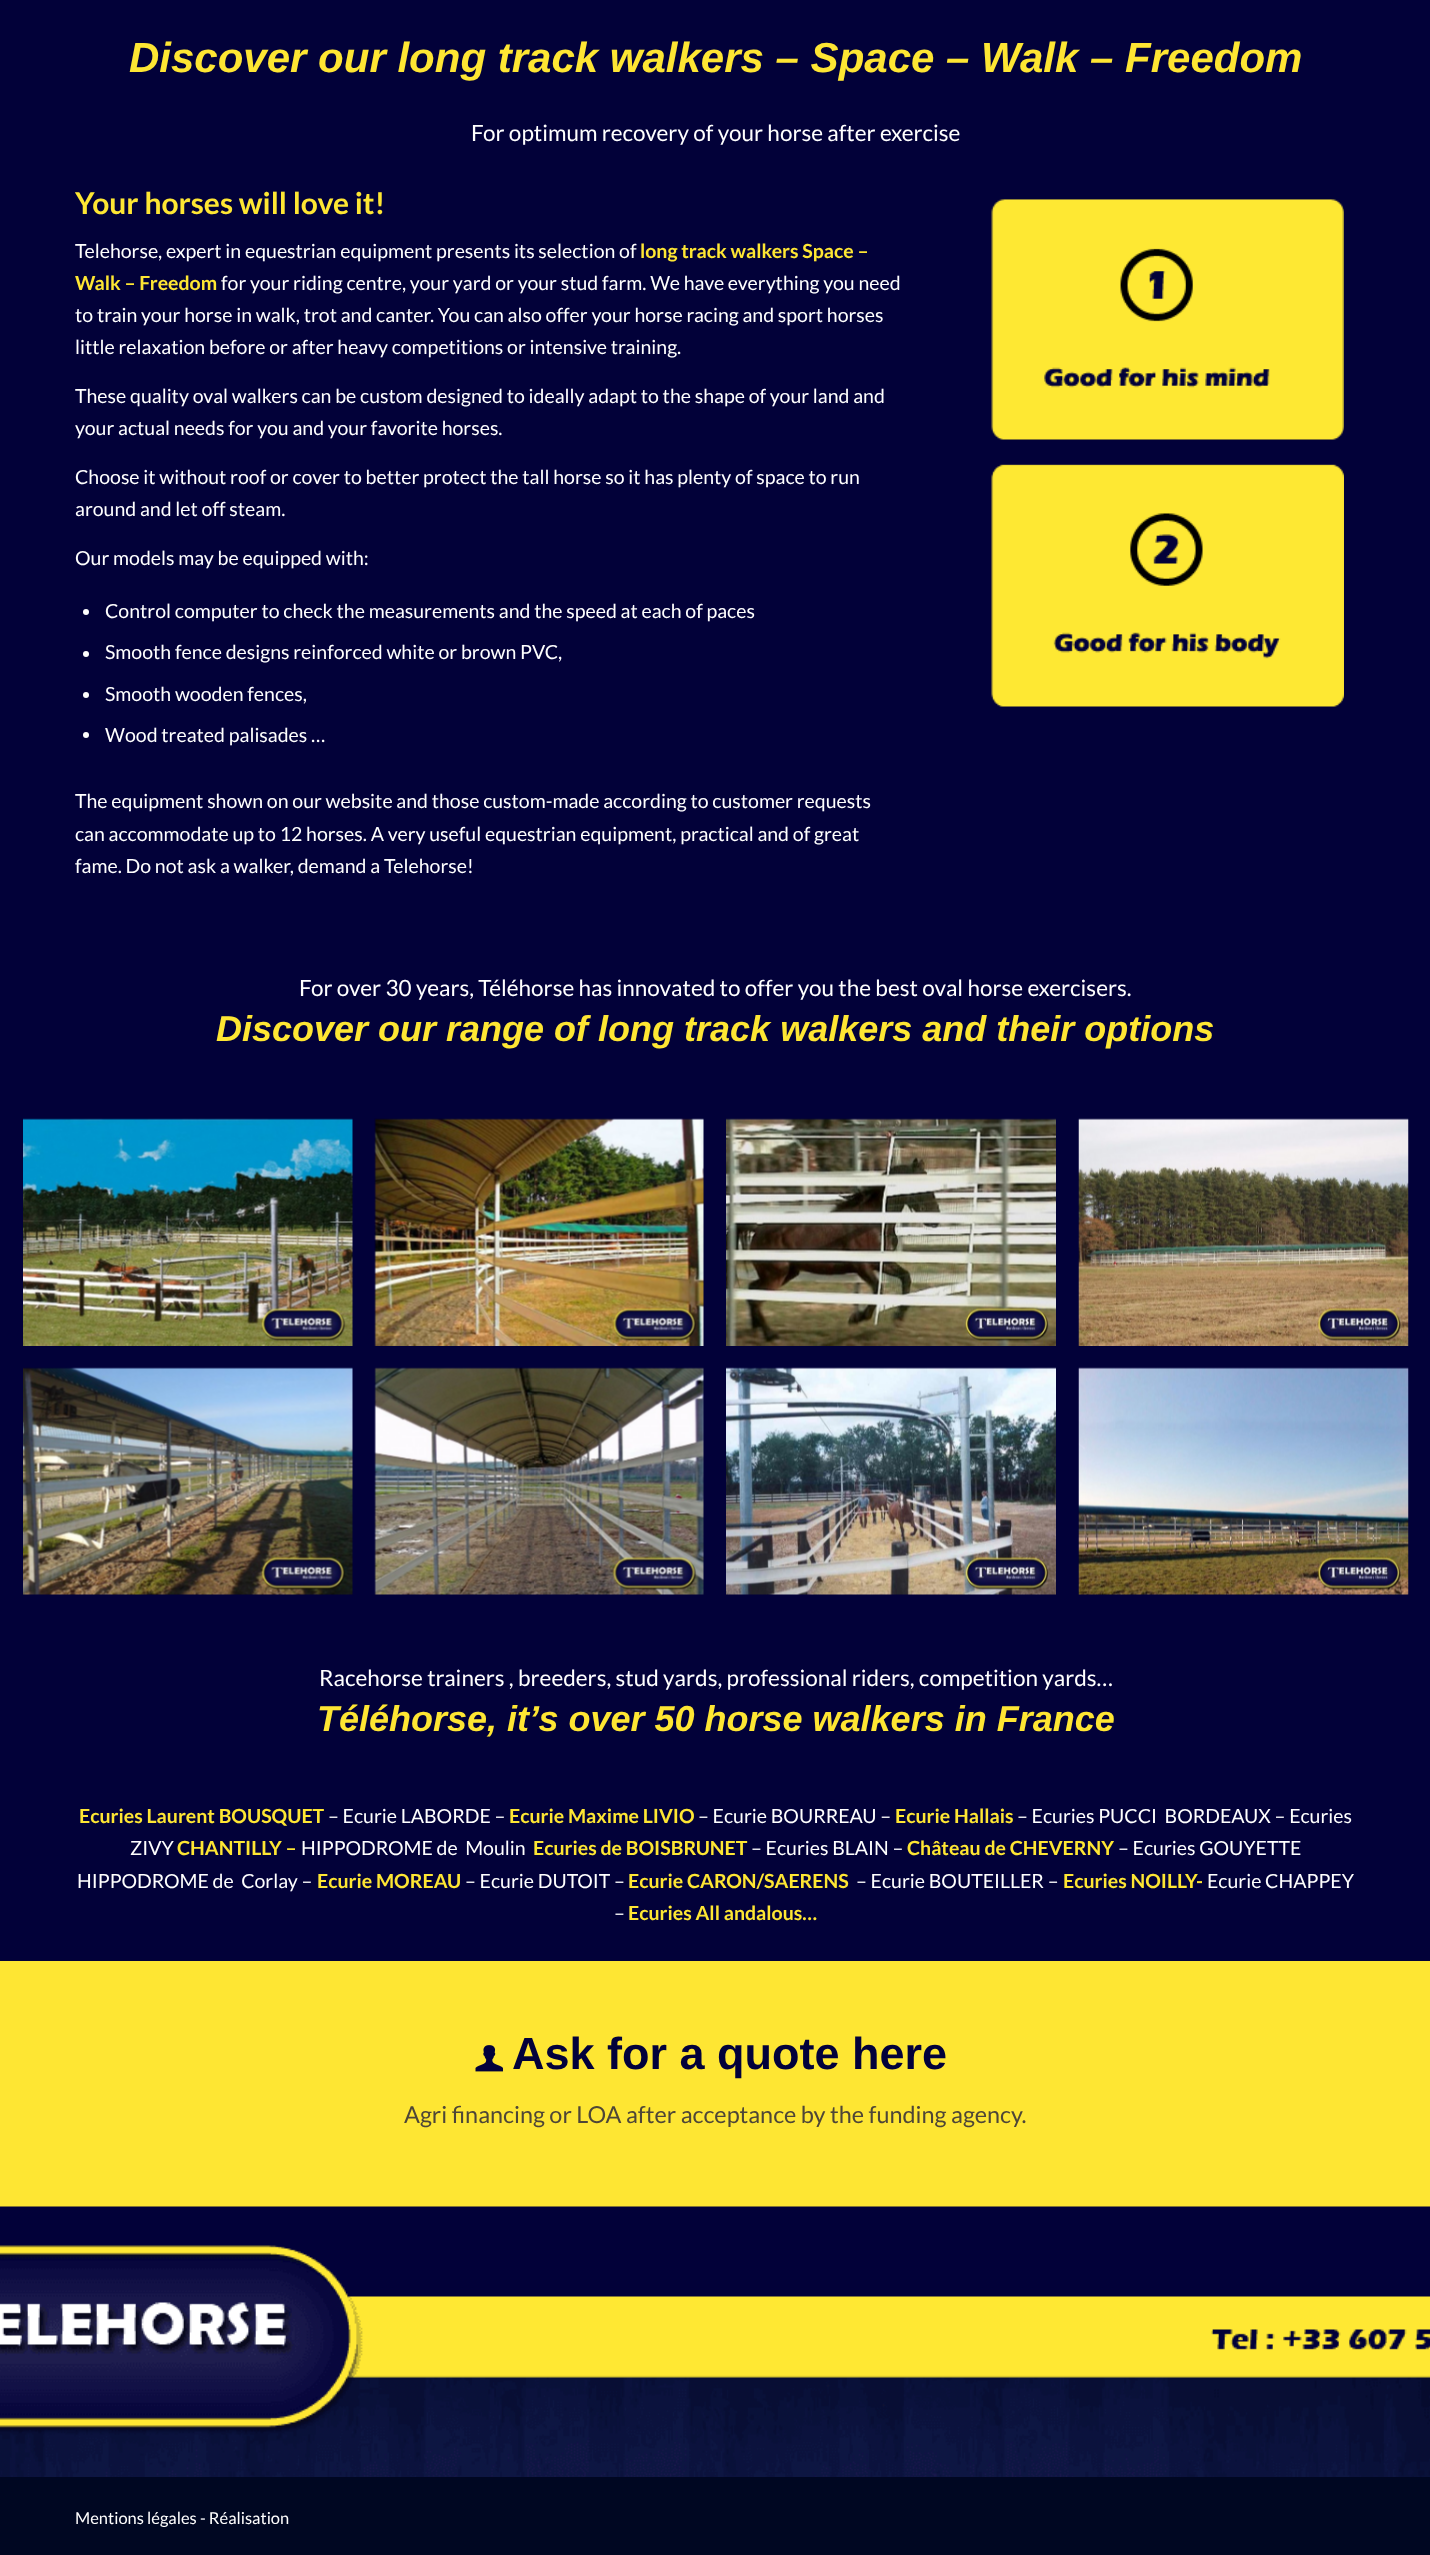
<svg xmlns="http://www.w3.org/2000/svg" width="1430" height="2555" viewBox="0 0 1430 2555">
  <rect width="100%" height="100%" fill="rgb(2,1,57)"/>
  <text x="129" y="72" font-family="Liberation Sans" font-size="42" font-weight="bold" font-style="italic" fill="rgb(254,230,51)">Discover our long track walkers – Space – Walk – Freedom</text>
  <text x="471" y="141" font-family="Lato" font-size="22.5" fill="rgb(255,255,255)">For optimum recovery of your horse after exercise</text>
  <text x="75" y="214" font-family="Lato" font-size="30" font-weight="bold" fill="rgb(254,230,51)">Your horses will love it!</text>
  <text x="75" y="258" font-family="Lato" font-size="19.5" fill="rgb(255,255,255)">Telehorse, expert in equestrian equipment presents its selection of</text>
  <g font-family="Lato" font-size="19.5" font-weight="bold" fill="rgb(254,230,51)">
    <text x="640" y="258">long track walkers Space –</text>
    <text x="75" y="290">Walk – Freedom</text>
  </g>
  <g font-family="Lato" font-size="19.5" fill="rgb(255,255,255)">
    <text x="221" y="290">for your riding centre, your yard or your stud farm. We have everything you need</text>
    <text>
      <tspan x="75" y="322">to train your horse in walk, trot and canter. You can also offer your horse racing and sport horses</tspan>
      <tspan x="75" y="354">little relaxation before or after heavy competitions or intensive training.</tspan>
    </text>
    <text>
      <tspan x="75" y="403">These quality oval walkers can be custom designed to ideally adapt to the shape of your land and</tspan>
      <tspan x="75" y="435">your actual needs for you and your favorite horses.</tspan>
    </text>
    <text>
      <tspan x="75" y="484">Choose it without roof or cover to better protect the tall horse so it has plenty of space to run</tspan>
      <tspan x="75" y="516">around and let off steam.</tspan>
    </text>
    <text x="75" y="565">Our models may be equipped with:</text>
  </g>
  <circle cx="86" cy="612" r="3" fill="rgb(255,255,255)"/>
  <text x="105" y="618" font-family="Lato" font-size="19.5" fill="rgb(255,255,255)">Control computer to check the measurements and the speed at each of paces</text>
  <circle cx="86" cy="654" r="3" fill="rgb(255,255,255)"/>
  <text x="105" y="659" font-family="Lato" font-size="19.5" fill="rgb(255,255,255)">Smooth fence designs reinforced white or brown PVC,</text>
  <circle cx="86" cy="695" r="3" fill="rgb(255,255,255)"/>
  <text x="105" y="701" font-family="Lato" font-size="19.5" fill="rgb(255,255,255)">Smooth wooden fences,</text>
  <circle cx="86" cy="735" r="3" fill="rgb(255,255,255)"/>
  <g font-family="Lato" font-size="19.5" fill="rgb(255,255,255)">
    <text x="105" y="742">W</text>
    <text x="125" y="742">ood treated palisades …</text>
    <text>
      <tspan x="75" y="808">The equipment shown on our website and those custom-made according to customer requests</tspan>
      <tspan x="75" y="841">can accommodate up to 12 horses. A very useful equestrian equipment, practical and of great</tspan>
      <tspan x="75" y="873">fame. Do not ask a walker, demand a Telehorse!</tspan>
    </text>
  </g>
  <image x="991" y="199" width="353" height="241" href="pic1.png"/>
  <image x="991" y="464" width="353" height="243" href="pic2.png"/>
  <text x="299" y="996" font-family="Lato" font-size="22.5" fill="rgb(255,255,255)">For over 30 years, Téléhorse has innovated to offer you the best oval horse exercisers.</text>
  <text x="216" y="1041" font-family="Liberation Sans" font-size="36" font-weight="bold" font-style="italic" fill="rgb(254,230,51)">Discover our range of long track walkers and their options</text>
  <image x="23" y="1118" width="330" height="228" href="pic3.png"/>
  <image x="374" y="1118" width="330" height="228" href="pic4.png"/>
  <image x="726" y="1118" width="330" height="228" href="pic5.png"/>
  <image x="1078" y="1118" width="331" height="228" href="pic6.png"/>
  <image x="23" y="1367" width="330" height="228" href="pic7.png"/>
  <image x="374" y="1367" width="330" height="228" href="pic8.png"/>
  <image x="726" y="1367" width="330" height="228" href="pic9.png"/>
  <image x="1078" y="1367" width="331" height="228" href="pic10.png"/>
  <text x="319" y="1686" font-family="Lato" font-size="22.5" fill="rgb(255,255,255)">Racehorse trainers , breeders, stud yards, professional riders, competition yards…</text>
  <text x="317" y="1731" font-family="Liberation Sans" font-size="36" font-weight="bold" font-style="italic" fill="rgb(254,230,51)">Téléhorse, it’s over 50 horse walkers in France</text>
  <text x="79" y="1823" font-family="Lato" font-size="19.5" font-weight="bold" fill="rgb(254,230,51)">Ecuries Laurent BOUSQUET</text>
  <text x="328" y="1823" font-family="Lato" font-size="19.5" fill="rgb(255,255,255)">– Ecurie LABORDE –</text>
  <text x="509" y="1823" font-family="Lato" font-size="19.5" font-weight="bold" fill="rgb(254,230,51)">Ecurie Maxime LIVIO</text>
  <text x="698" y="1823" font-family="Lato" font-size="19.5" fill="rgb(255,255,255)">– Ecurie BOURREAU –</text>
  <text x="895" y="1823" font-family="Lato" font-size="19.5" font-weight="bold" fill="rgb(254,230,51)">Ecurie Hallais</text>
  <g font-family="Lato" font-size="19.5" fill="rgb(255,255,255)">
    <text x="1017" y="1823" xml:space="preserve">– Ecuries PUCCI  BORDEAUX – Ecuries</text>
    <text x="130" y="1855">ZIVY</text>
  </g>
  <text x="177" y="1855" font-family="Lato" font-size="19.5" font-weight="bold" fill="rgb(254,230,51)">CHANTILLY –</text>
  <text x="301" y="1855" font-family="Lato" font-size="19.5" fill="rgb(255,255,255)" xml:space="preserve">HIPPODROME de  Moulin</text>
  <text x="533" y="1855" font-family="Lato" font-size="19.5" font-weight="bold" fill="rgb(254,230,51)">Ecuries de BOISBRUNET</text>
  <text x="751" y="1855" font-family="Lato" font-size="19.5" fill="rgb(255,255,255)">– Ecuries BLAIN –</text>
  <text x="907" y="1855" font-family="Lato" font-size="19.5" font-weight="bold" fill="rgb(254,230,51)">Château de CHEVERNY</text>
  <g font-family="Lato" font-size="19.5" fill="rgb(255,255,255)">
    <text x="1118" y="1855">– Ecuries GOUYETTE</text>
    <text x="77" y="1888" xml:space="preserve">HIPPODROME de  Corlay –</text>
  </g>
  <text x="317" y="1888" font-family="Lato" font-size="19.5" font-weight="bold" fill="rgb(254,230,51)">Ecurie MOREAU</text>
  <text x="465" y="1888" font-family="Lato" font-size="19.5" fill="rgb(255,255,255)">– Ecurie DUTOIT –</text>
  <text x="628" y="1888" font-family="Lato" font-size="19.5" font-weight="bold" fill="rgb(254,230,51)">Ecurie CARON/SAERENS</text>
  <text x="856" y="1888" font-family="Lato" font-size="19.5" fill="rgb(255,255,255)">– Ecurie BOUTEILLER –</text>
  <text x="1063" y="1888" font-family="Lato" font-size="19.5" font-weight="bold" fill="rgb(254,230,51)">Ecuries NOILLY-</text>
  <g font-family="Lato" font-size="19.5" fill="rgb(255,255,255)">
    <text x="1207" y="1888">Ecurie CHAPPEY</text>
    <text x="614" y="1920">–</text>
  </g>
  <text x="628" y="1920" font-family="Lato" font-size="19.5" font-weight="bold" fill="rgb(254,230,51)">Ecuries All andalous…</text>
  <rect x="0" y="1961" width="1430" height="246" fill="rgb(254,230,51)"/>
  <image x="475" y="2045" width="28" height="27" href="pic11.png"/>
  <text x="512" y="2069" font-family="Liberation Sans" font-size="45" font-weight="bold" fill="rgb(2,1,59)">Ask for a quote here</text>
  <text x="404" y="2123" font-family="Lato" font-size="23.4" fill="rgb(78,70,55)">Agri financing or LOA after acceptance by the funding agency.</text>
  <image x="0" y="2206" width="1430" height="271" href="pic12.png"/>
  <rect x="0" y="2477" width="1430" height="78" fill="rgb(0,7,34)"/>
  <text x="75" y="2524" font-family="Lato" font-size="16.5" fill="rgb(255,255,255)">Mentions légales - Réalisation</text>
</svg>
